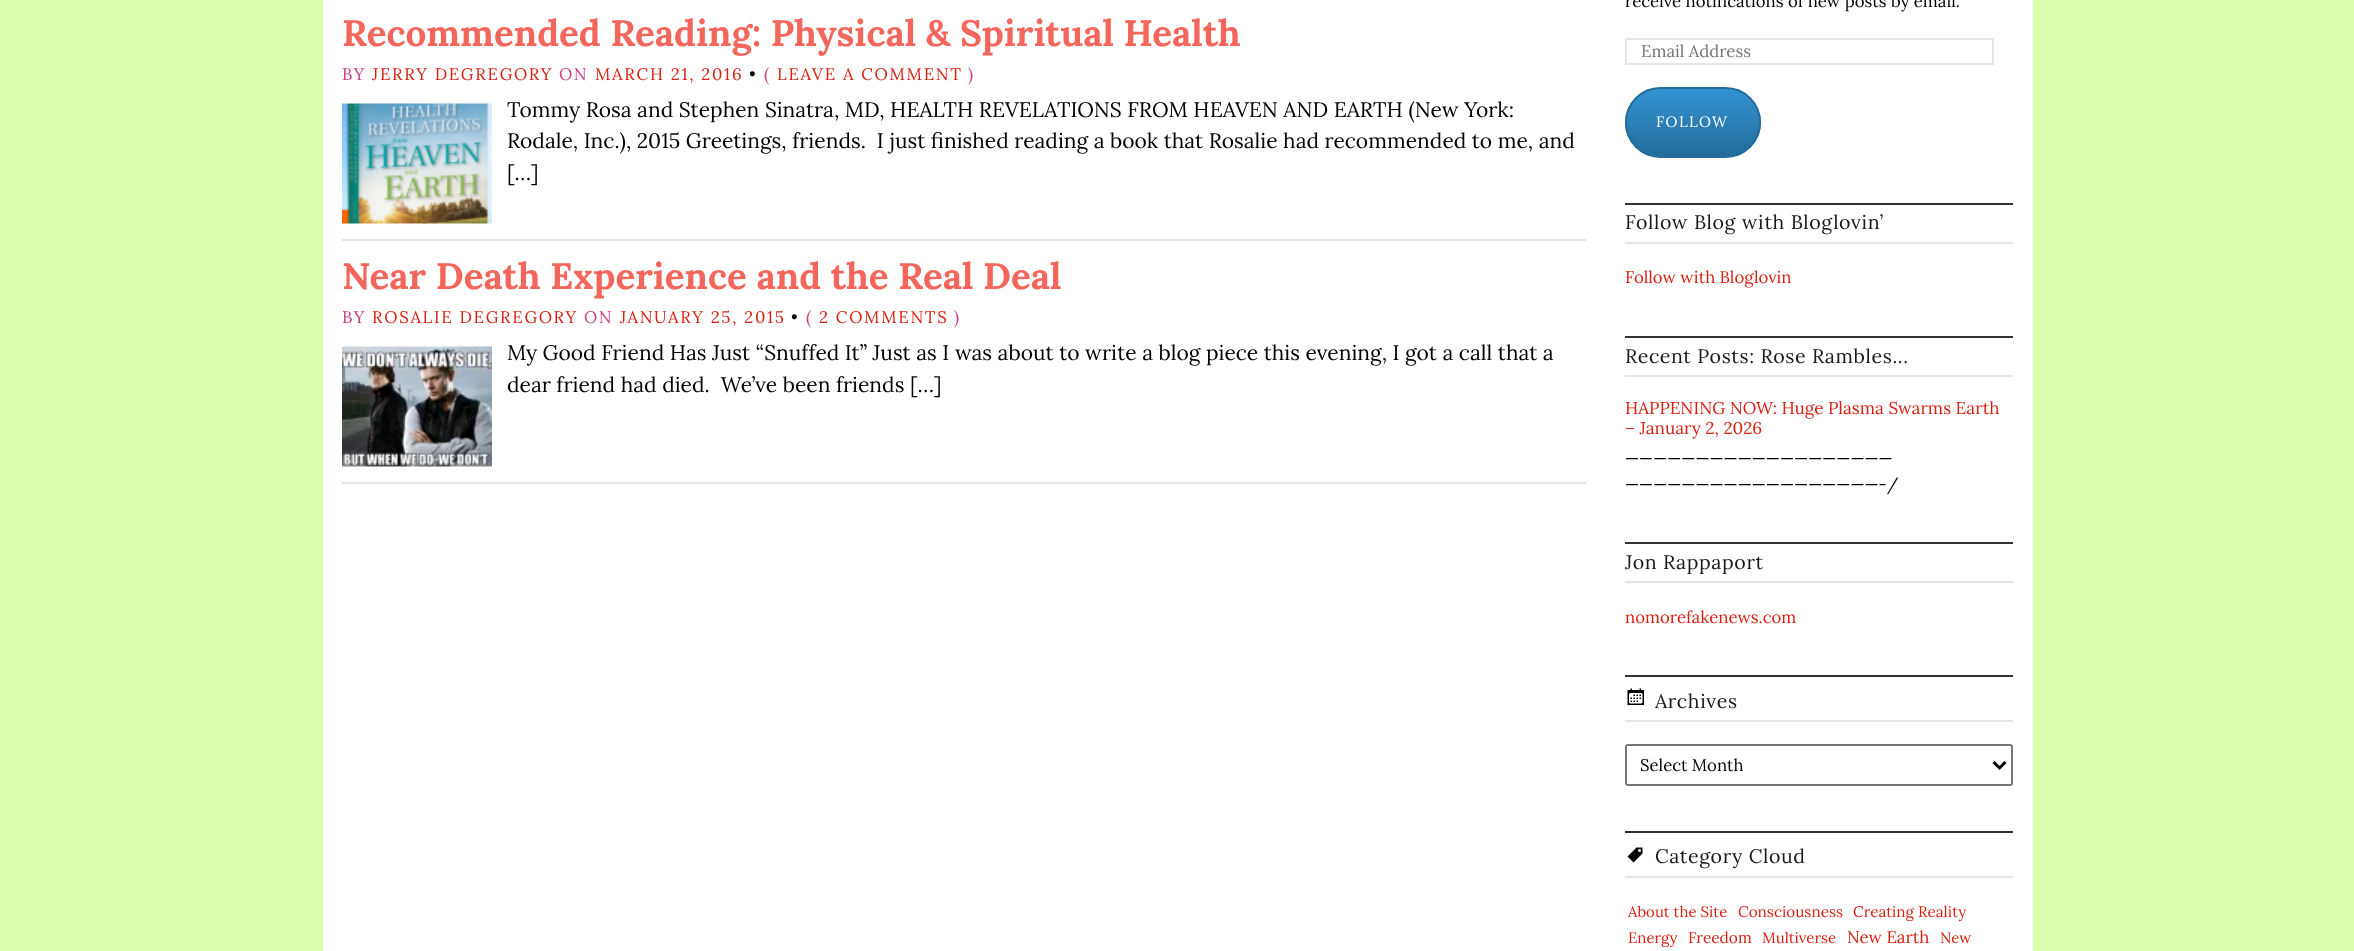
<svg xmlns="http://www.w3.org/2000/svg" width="2354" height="951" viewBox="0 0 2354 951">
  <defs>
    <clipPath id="clip1"><rect x="1625" y="87" width="136" height="71" rx="35.5"/></clipPath>
    <linearGradient id="g1" gradientUnits="userSpaceOnUse" x1="1693" y1="88" x2="1693" y2="156"><stop offset="0" stop-color="rgb(52,147,210)"/><stop offset="1" stop-color="rgb(35,108,156)"/></linearGradient>
  </defs>
  <rect width="100%" height="100%" fill="rgb(218,254,174)"/>
  <rect x="323" y="0" width="1710" height="951" fill="rgb(255,255,255)"/>
  <rect x="342" y="239" width="1244" height="2" fill="rgb(230,230,230)"/>
  <text x="342" y="46" font-family="Lora" font-size="36.75" font-weight="bold" fill="rgb(244,102,92)">Recommended Reading: Physical &amp; Spiritual Health</text>
  <text x="342" y="80" font-family="Lora" font-size="16.75" letter-spacing="1.7" fill="rgb(203,61,130)">BY</text>
  <text x="372" y="80" font-family="Lora" font-size="16.75" letter-spacing="1.7" fill="rgb(215,31,18)">JERRY DEGREGORY</text>
  <text x="559" y="80" font-family="Lora" font-size="16.75" letter-spacing="1.7" fill="rgb(203,61,130)">ON</text>
  <text x="595" y="80" font-family="Lora" font-size="16.75" letter-spacing="1.7" fill="rgb(215,31,18)">MARCH 21, 2016</text>
  <text x="749" y="80" font-family="Lora" font-size="16.75" letter-spacing="1.7" fill="rgb(0,0,0)">•</text>
  <text x="764" y="80" font-family="Lora" font-size="16.75" letter-spacing="1.7" fill="rgb(203,61,130)">(</text>
  <text x="777" y="80" font-family="Lora" font-size="16.75" letter-spacing="1.7" fill="rgb(215,31,18)">LEAVE A COMMENT</text>
  <text x="968" y="80" font-family="Lora" font-size="16.75" letter-spacing="1.7" fill="rgb(203,61,130)">)</text>
  <image x="342" y="103" width="150" height="121" href="pic1.png"/>
  <g font-family="Lora" font-size="21" fill="rgb(0,0,0)">
    <text xml:space="preserve"><tspan x="507" y="117">Tommy Rosa and Stephen Sinatra, MD, HEALTH REVELATIONS FROM HEAVEN AND EARTH (New York:</tspan><tspan x="507" y="148">Rodale, Inc.), 2015 Greetings, friends.  I just finished reading a book that Rosalie had recommended to me, and</tspan><tspan x="507" y="180">[…]</tspan></text>
  </g>
  <rect x="342" y="482" width="1244" height="2" fill="rgb(230,230,230)"/>
  <text x="342" y="289" font-family="Lora" font-size="36.75" font-weight="bold" fill="rgb(244,102,92)">Near Death Experience and the Real Deal</text>
  <text x="342" y="323" font-family="Lora" font-size="16.75" letter-spacing="1.7" fill="rgb(203,61,130)">BY</text>
  <text x="372" y="323" font-family="Lora" font-size="16.75" letter-spacing="1.7" fill="rgb(215,31,18)">ROSALIE DEGREGORY</text>
  <text x="584" y="323" font-family="Lora" font-size="16.75" letter-spacing="1.7" fill="rgb(203,61,130)">ON</text>
  <text x="620" y="323" font-family="Lora" font-size="16.75" letter-spacing="1.7" fill="rgb(215,31,18)">JANUARY 25, 2015</text>
  <text x="791" y="323" font-family="Lora" font-size="16.75" letter-spacing="1.7" fill="rgb(0,0,0)">•</text>
  <text x="806" y="323" font-family="Lora" font-size="16.75" letter-spacing="1.7" fill="rgb(203,61,130)">(</text>
  <text x="819" y="323" font-family="Lora" font-size="16.75" letter-spacing="1.7" fill="rgb(215,31,18)">2 COMMENTS</text>
  <text x="954" y="323" font-family="Lora" font-size="16.75" letter-spacing="1.7" fill="rgb(203,61,130)">)</text>
  <image x="342" y="346" width="150" height="121" href="pic2.png"/>
  <g font-family="Lora" font-size="21" fill="rgb(0,0,0)">
    <text xml:space="preserve"><tspan x="507" y="360">My Good Friend Has Just “Snuffed It” Just as I was about to write a blog piece this evening, I got a call that a</tspan><tspan x="507" y="392">dear friend had died.  We’ve been friends […]</tspan></text>
  </g>
  <text x="1625" y="7" font-family="Lora" font-size="16.75" fill="rgb(0,0,0)">receive notifications of new posts by email.</text>
  <rect x="1626" y="39" width="367" height="25" fill="none" stroke="rgb(230,230,230)" stroke-width="2"/>
  <text x="1641" y="57" font-family="Lora" font-size="16.75" fill="rgb(117,117,117)">Email Address</text>
  <g clip-path="url(#clip1)">
    <rect x="1625" y="89" width="136" height="67" fill="url(#g1)"/>
  </g>
  <rect x="1626" y="88" width="134" height="69" rx="34.5" fill="none" stroke="rgb(35,108,156)" stroke-width="2"/>
  <text x="1656" y="127" font-family="Lora" font-size="15" letter-spacing="1.5" fill="rgb(255,255,255)">FOLLOW</text>
  <rect x="1625" y="203" width="388" height="2" fill="rgb(51,51,51)"/>
  <rect x="1625" y="242" width="388" height="2" fill="rgb(230,230,230)"/>
  <text x="1625" y="229" font-family="Lora" font-size="19.6" letter-spacing="0.6" fill="rgb(26,26,26)">Follow Blog with Bloglovin’</text>
  <text x="1625" y="283" font-family="Lora" font-size="16.75" fill="rgb(215,31,18)">Follow with Bloglovin</text>
  <rect x="1625" y="336" width="388" height="2" fill="rgb(51,51,51)"/>
  <rect x="1625" y="375" width="388" height="2" fill="rgb(230,230,230)"/>
  <text x="1625" y="363" font-family="Lora" font-size="19.6" letter-spacing="0.6" fill="rgb(26,26,26)">Recent Posts: Rose Rambles...</text>
  <g font-family="Lora" font-size="17.15" fill="rgb(215,31,18)">
    <text>
      <tspan x="1625" y="414">HAPPENING NOW: Huge Plasma Swarms Earth</tspan>
      <tspan x="1625" y="434">– January 2, 2026</tspan>
    </text>
  </g>
  <g font-family="Lora" font-size="16.75" fill="rgb(0,0,0)">
    <text>
      <tspan x="1625" y="464">———————————————————</tspan>
      <tspan x="1625" y="490">——————————————————-/</tspan>
    </text>
  </g>
  <rect x="1625" y="542" width="388" height="2" fill="rgb(51,51,51)"/>
  <rect x="1625" y="581" width="388" height="2" fill="rgb(230,230,230)"/>
  <text x="1625" y="569" font-family="Lora" font-size="19.6" letter-spacing="0.6" fill="rgb(26,26,26)">Jon Rappaport</text>
  <text x="1625" y="623" font-family="Lora" font-size="16.75" fill="rgb(215,31,18)">nomorefakenews.com</text>
  <rect x="1625" y="675" width="388" height="2" fill="rgb(51,51,51)"/>
  <rect x="1625" y="720" width="388" height="2" fill="rgb(230,230,230)"/>
  <image x="1627" y="688" width="17" height="17" href="pic3.png"/>
  <text x="1655" y="708" font-family="Lora" font-size="19.6" letter-spacing="0.6" fill="rgb(26,26,26)">Archives</text>
  <rect x="1626" y="745" width="386" height="40" rx="2" fill="none" stroke="rgb(118,118,118)" stroke-width="2"/>
  <path d="M1993.5 762L1999.5 768L2005.5 762" fill="none" stroke="rgb(0,0,0)" stroke-width="3"/>
  <text x="1640" y="771" font-family="Lora" font-size="16.75" fill="rgb(0,0,0)">Select Month</text>
  <rect x="1625" y="831" width="388" height="2" fill="rgb(51,51,51)"/>
  <rect x="1625" y="876" width="388" height="2" fill="rgb(230,230,230)"/>
  <image x="1627" y="847" width="16" height="16" href="pic4.png"/>
  <text x="1655" y="863" font-family="Lora" font-size="19.6" letter-spacing="0.6" fill="rgb(26,26,26)">Category Cloud</text>
  <text x="1628" y="917" font-family="Lora" font-size="15" fill="rgb(215,31,18)">About the Site</text>
  <g font-family="Lora" font-size="15.25" fill="rgb(215,31,18)">
    <text x="1738" y="917">Consciousness</text>
    <text x="1853" y="917">Creating Reality</text>
  </g>
  <text x="1628" y="943" font-family="Lora" font-size="15" fill="rgb(215,31,18)">Energy</text>
  <text x="1688" y="943" font-family="Lora" font-size="15.5" fill="rgb(215,31,18)">Freedom</text>
  <text x="1762" y="943" font-family="Lora" font-size="15" fill="rgb(215,31,18)">Multiverse</text>
  <text x="1847" y="943" font-family="Lora" font-size="16.75" fill="rgb(215,31,18)">New Earth</text>
  <text x="1940" y="943" font-family="Lora" font-size="15" fill="rgb(215,31,18)">New</text>
</svg>
